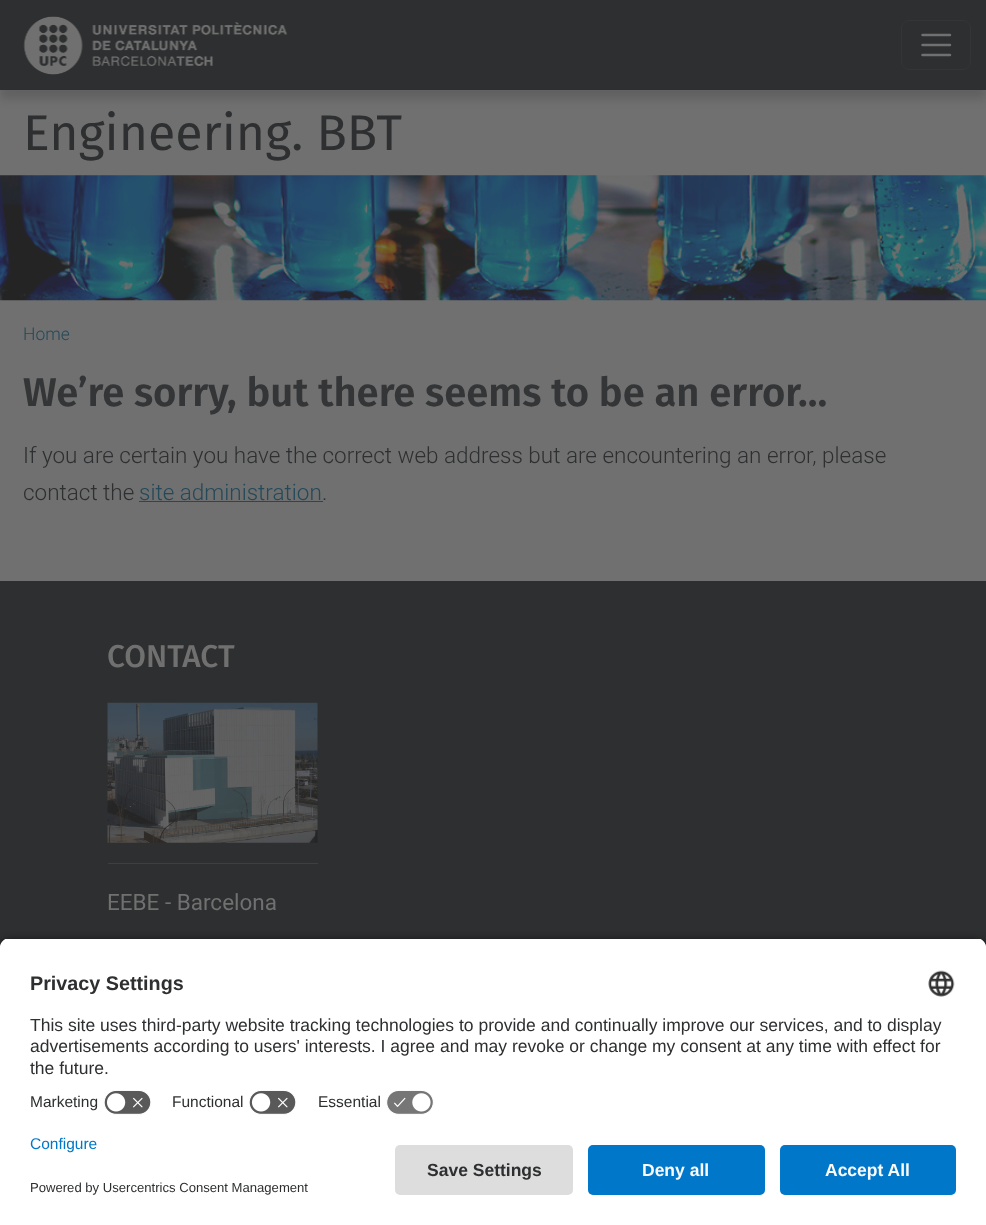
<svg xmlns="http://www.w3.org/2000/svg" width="986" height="1225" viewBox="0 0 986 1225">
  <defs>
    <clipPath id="clip1"><path d="M10 938H976C981.5 938 986 942.5 986 948V1135H0V948C0 942.5 4.5 938 10 938Z"/></clipPath>
  </defs>
  <rect width="100%" height="100%" fill="rgb(112,112,112)"/>
  <rect x="0" y="9" width="986" height="90" fill="rgba(36,36,36,0.2)" filter="blur(5px)"/>
  <rect x="0" y="0" width="986" height="90" fill="rgb(46,47,48)"/>
  <image x="23" y="16" width="265" height="59" href="pic1.png"/>
  <rect x="901.5" y="20.5" width="69" height="49" rx="7.5" fill="none" stroke="rgb(52,53,54)"/>
  <path d="M922.5 35H950M922.5 45H950M922.5 55H950" fill="none" stroke="rgb(112,112,112)" stroke-width="2.5" stroke-linecap="round"/>
  <text x="23" y="150" font-family="Fira Sans" font-size="50" fill="rgb(46,47,48)">Engineering. BBT</text>
  <image x="0" y="175" width="986" height="126" href="pic2.png"/>
  <text x="23" y="340" font-family="Roboto" font-size="17.5" font-weight="300" fill="rgb(36,73,89)">Home</text>
  <text x="23" y="406" font-family="Fira Sans" font-size="40" font-weight="600" fill="rgb(51,53,55)">We’re sorry, but there seems to be an error…</text>
  <g font-family="Roboto" font-size="22.5" font-weight="300" fill="rgb(46,47,48)">
    <text>
      <tspan x="23" y="463">If you are certain you have the correct web address but are encountering an error, please</tspan>
      <tspan x="23" y="500">contact the</tspan>
    </text>
  </g>
  <text x="139" y="500" font-family="Roboto" font-size="22.5" font-weight="300" fill="rgb(36,73,89)">site administration</text>
  <rect x="139" y="501" width="184" height="1" fill="rgb(36,73,89)"/>
  <text x="322" y="500" font-family="Roboto" font-size="22.5" font-weight="300" fill="rgb(46,47,48)">.</text>
  <rect x="0" y="581" width="986" height="367" fill="rgb(46,47,48)"/>
  <text x="107" y="667" font-family="Fira Sans" font-size="31.5" font-weight="500" fill="rgb(112,112,112)">CONTACT</text>
  <image x="107" y="702" width="211" height="141" href="pic3.png"/>
  <rect x="108" y="863" width="210" height="1" fill="rgb(62,63,64)"/>
  <text x="107" y="910" font-family="Roboto" font-size="22.5" fill="rgb(112,112,112)">EEBE - Barcelona</text>
  <rect x="0" y="941" width="986" height="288" rx="10" fill="rgba(0,0,0,0.8)" filter="blur(4.5px)"/>
  <g clip-path="url(#clip1)">
    <rect x="0" y="939" width="986" height="196" fill="rgb(255,255,255)"/>
    <rect x="0" y="939" width="986" height="146" fill="rgb(255,255,255)"/>
  </g>
  <text x="30" y="990" font-family="Liberation Sans" font-size="19.75" font-weight="bold" fill="rgb(46,47,48)">Privacy Settings</text>
  <image x="928" y="970" width="27" height="27" href="pic4.png"/>
  <g font-family="Liberation Sans" font-size="17.5" fill="rgb(46,47,48)">
    <text>
      <tspan x="30" y="1031">This site uses third-party website tracking technologies to provide and continually improve our services, and to display</tspan>
      <tspan x="30" y="1052">advertisements according to users' interests. I agree and may revoke or change my consent at any time with effect for</tspan>
      <tspan x="30" y="1074">the future.</tspan>
    </text>
  </g>
  <text x="30" y="1107" font-family="Liberation Sans" font-size="15.5" fill="rgb(46,47,48)">Marketing</text>
  <image x="104" y="1090" width="47" height="25" href="pic5.png"/>
  <text x="172" y="1107" font-family="Liberation Sans" font-size="15.5" fill="rgb(46,47,48)">Functional</text>
  <image x="249" y="1090" width="47" height="25" href="pic5.png"/>
  <text x="318" y="1107" font-family="Liberation Sans" font-size="15.5" fill="rgb(46,47,48)">Essential</text>
  <image x="386" y="1090" width="48" height="25" href="pic6.png"/>
  <rect x="0" y="1135" width="986" height="90" fill="rgb(255,255,255)"/>
  <text x="30" y="1149" font-family="Liberation Sans" font-size="15.5" fill="rgb(0,119,200)">Configure</text>
  <text x="30" y="1192" font-family="Liberation Sans" font-size="13.1" fill="rgb(46,47,48)">Powered by Usercentrics Consent Management</text>
  <rect x="395" y="1145" width="178" height="50" rx="5" fill="rgb(221,221,221)"/>
  <text x="427" y="1176" font-family="Liberation Sans" font-size="17.5" font-weight="bold" fill="rgb(46,47,48)">Save Settings</text>
  <rect x="588" y="1145" width="177" height="50" rx="5" fill="rgb(0,119,200)"/>
  <text x="642" y="1176" font-family="Liberation Sans" font-size="17.5" font-weight="bold" fill="rgb(250,250,250)">Deny all</text>
  <rect x="780" y="1145" width="176" height="50" rx="5" fill="rgb(0,119,200)"/>
  <text x="825" y="1176" font-family="Liberation Sans" font-size="17.5" font-weight="bold" fill="rgb(250,250,250)">Accept All</text>
</svg>
